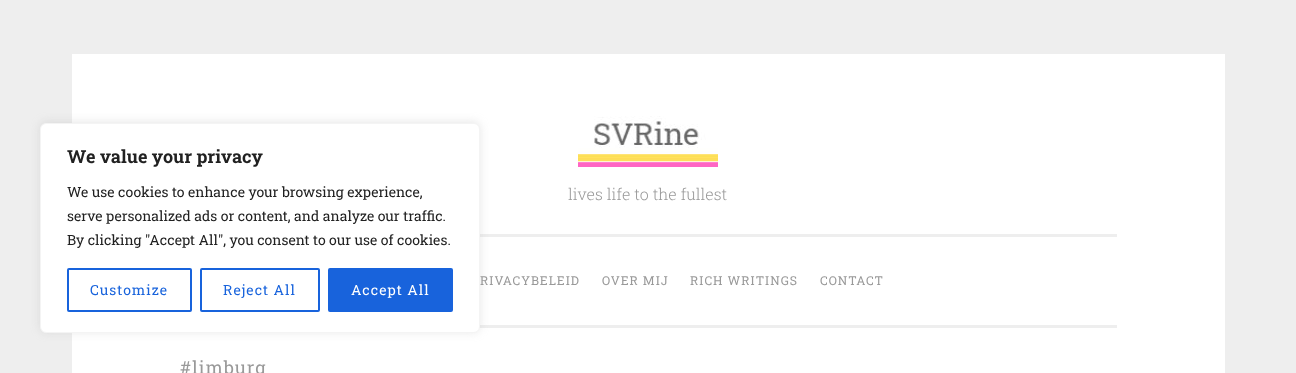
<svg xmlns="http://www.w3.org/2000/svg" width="1296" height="373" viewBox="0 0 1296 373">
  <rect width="100%" height="100%" fill="rgb(238,238,238)"/>
  <rect x="72" y="54" width="1153" height="319" fill="rgb(255,255,255)"/>
  <rect x="479" y="325" width="638" height="3" fill="rgb(238,238,238)"/>
  <rect x="480" y="234" width="637" height="3" fill="rgb(238,238,238)"/>
  <rect x="40" y="122" width="440" height="210" rx="6" fill="rgba(172,171,171,0.3)" filter="blur(5px)"/>
  <rect x="40.5" y="123.5" width="439" height="209" rx="5.5" fill="rgb(255,255,255)" stroke="rgb(244,244,244)"/>
  <text x="67" y="163" font-family="Roboto Slab" font-size="18" font-weight="bold" fill="rgb(33,33,33)">We value your privacy</text>
  <g font-family="Roboto Slab" font-size="14" fill="rgb(33,33,33)">
    <text>
      <tspan x="67" y="197">We use cookies to enhance your browsing experience,</tspan>
      <tspan x="67" y="221">serve personalized ads or content, and analyze our traffic.</tspan>
      <tspan x="67" y="245">By clicking "Accept All", you consent to our use of cookies.</tspan>
    </text>
  </g>
  <rect x="68" y="269" width="123" height="42" rx="1" fill="none" stroke="rgb(24,99,220)" stroke-width="2"/>
  <text x="90" y="295" font-family="Roboto Slab" font-size="14" letter-spacing="1" fill="rgb(24,99,220)">Customize</text>
  <rect x="201" y="269" width="118" height="42" rx="1" fill="none" stroke="rgb(24,99,220)" stroke-width="2"/>
  <text x="223" y="295" font-family="Roboto Slab" font-size="14" letter-spacing="1" fill="rgb(24,99,220)">Reject All</text>
  <rect x="329" y="269" width="123" height="42" rx="1" fill="rgb(24,99,220)" stroke="rgb(24,99,220)" stroke-width="2"/>
  <text x="351" y="295" font-family="Roboto Slab" font-size="14" letter-spacing="1" fill="rgb(255,255,255)">Accept All</text>
  <image x="578" y="116" width="140" height="51" href="pic1.png"/>
  <text x="568" y="200" font-family="Roboto Slab" font-size="16" font-weight="300" fill="rgb(153,153,153)">lives life to the fullest</text>
  <g font-family="Roboto Slab" font-size="12.25" letter-spacing="1" fill="rgb(153,153,153)">
    <text x="480" y="285">RIVACYBELEID</text>
    <text x="602" y="285">OVER MIJ</text>
    <text x="690" y="285">RICH WRITINGS</text>
    <text x="820" y="285">CONTACT</text>
  </g>
  <text x="180" y="374" font-family="Roboto Slab" font-size="18" letter-spacing="1" fill="rgb(153,153,153)">#limburg</text>
</svg>
